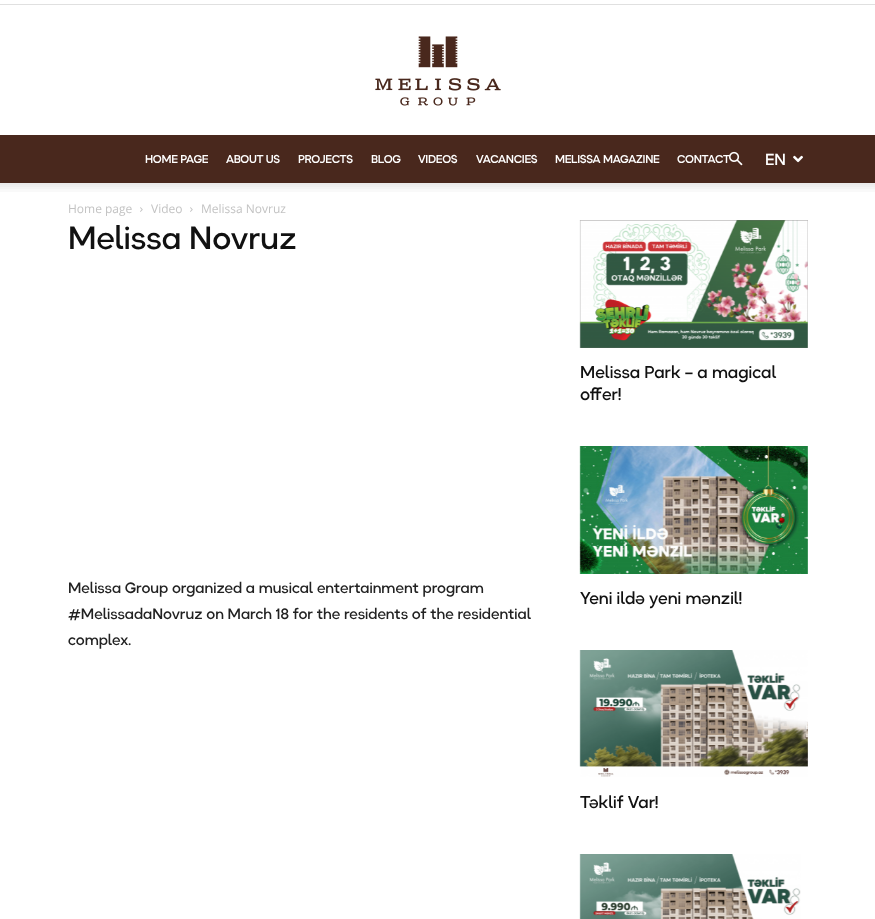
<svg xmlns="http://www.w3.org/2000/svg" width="875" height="919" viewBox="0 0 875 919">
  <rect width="100%" height="100%" fill="rgb(73,40,29)"/>
  <rect x="0" y="0" width="875" height="4" fill="rgb(255,255,255)"/>
  <rect x="0" y="4" width="875" height="1" fill="rgb(224,224,224)"/>
  <rect x="0" y="5" width="875" height="130" fill="rgb(255,255,255)"/>
  <image x="375" y="36" width="126" height="70" href="pic1.png"/>
  <g font-family="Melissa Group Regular" font-size="11" font-weight="bold" fill="rgb(255,255,255)">
    <text x="145" y="163">HOME PAGE</text>
    <text x="226" y="163">ABOUT US</text>
    <text x="298" y="163">PROJECTS</text>
    <text x="371" y="163">BLOG</text>
    <text x="418" y="163">VIDEOS</text>
    <text x="476" y="163">VACANCIES</text>
    <text x="555" y="163">MELISSA MAGAZINE</text>
    <text x="677" y="163">CONTACT</text>
  </g>
  <image x="729" y="151" width="14" height="15" href="pic2.png"/>
  <text x="765" y="165" font-family="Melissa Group" font-size="16" font-weight="500" fill="rgb(255,255,255)">EN</text>
  <image x="793" y="155" width="10" height="8" href="pic3.png"/>
  <rect x="0" y="183" width="875" height="736" fill="rgb(255,255,255)"/>
  <image x="0" y="183" width="875" height="9" href="pic4.png"/>
  <text x="68" y="213" font-family="Open Sans" font-size="12" fill="rgb(195,195,195)">Home page</text>
  <image x="140" y="207" width="3" height="5" href="pic5.png"/>
  <text x="151" y="213" font-family="Open Sans" font-size="12" fill="rgb(195,195,195)">Video</text>
  <image x="190" y="207" width="3" height="5" href="pic5.png"/>
  <text x="201" y="213" font-family="Open Sans" font-size="12" fill="rgb(195,195,195)">Melissa Novruz</text>
  <text x="68" y="249" font-family="Melissa Group" font-size="32" font-weight="500" fill="rgb(17,17,17)">Melissa Novruz</text>
  <g font-family="Melissa Group" font-size="15" font-weight="500" fill="rgb(34,34,34)">
    <text>
      <tspan x="68" y="593">Melissa Group organized a musical entertainment program</tspan>
      <tspan x="68" y="619">#MelissadaNovruz on March 18 for the residents of the residential</tspan>
      <tspan x="68" y="645">complex.</tspan>
    </text>
  </g>
  <image x="579" y="220" width="229" height="128" href="pic6.png"/>
  <g font-family="Melissa Group" font-size="17" font-weight="500" fill="rgb(17,17,17)">
    <text>
      <tspan x="580" y="378">Melissa Park – a magical</tspan>
      <tspan x="580" y="400">offer!</tspan>
    </text>
  </g>
  <image x="579" y="446" width="229" height="128" href="pic7.png"/>
  <text x="580" y="604" font-family="Melissa Group" font-size="17" font-weight="500" fill="rgb(17,17,17)">Yeni ildə yeni mənzil!</text>
  <image x="579" y="650" width="229" height="127" href="pic8.png"/>
  <text x="580" y="808" font-family="Melissa Group" font-size="17" font-weight="500" fill="rgb(17,17,17)">Təklif Var!</text>
  <image x="579" y="854" width="222" height="65" href="pic9.png"/>
</svg>
